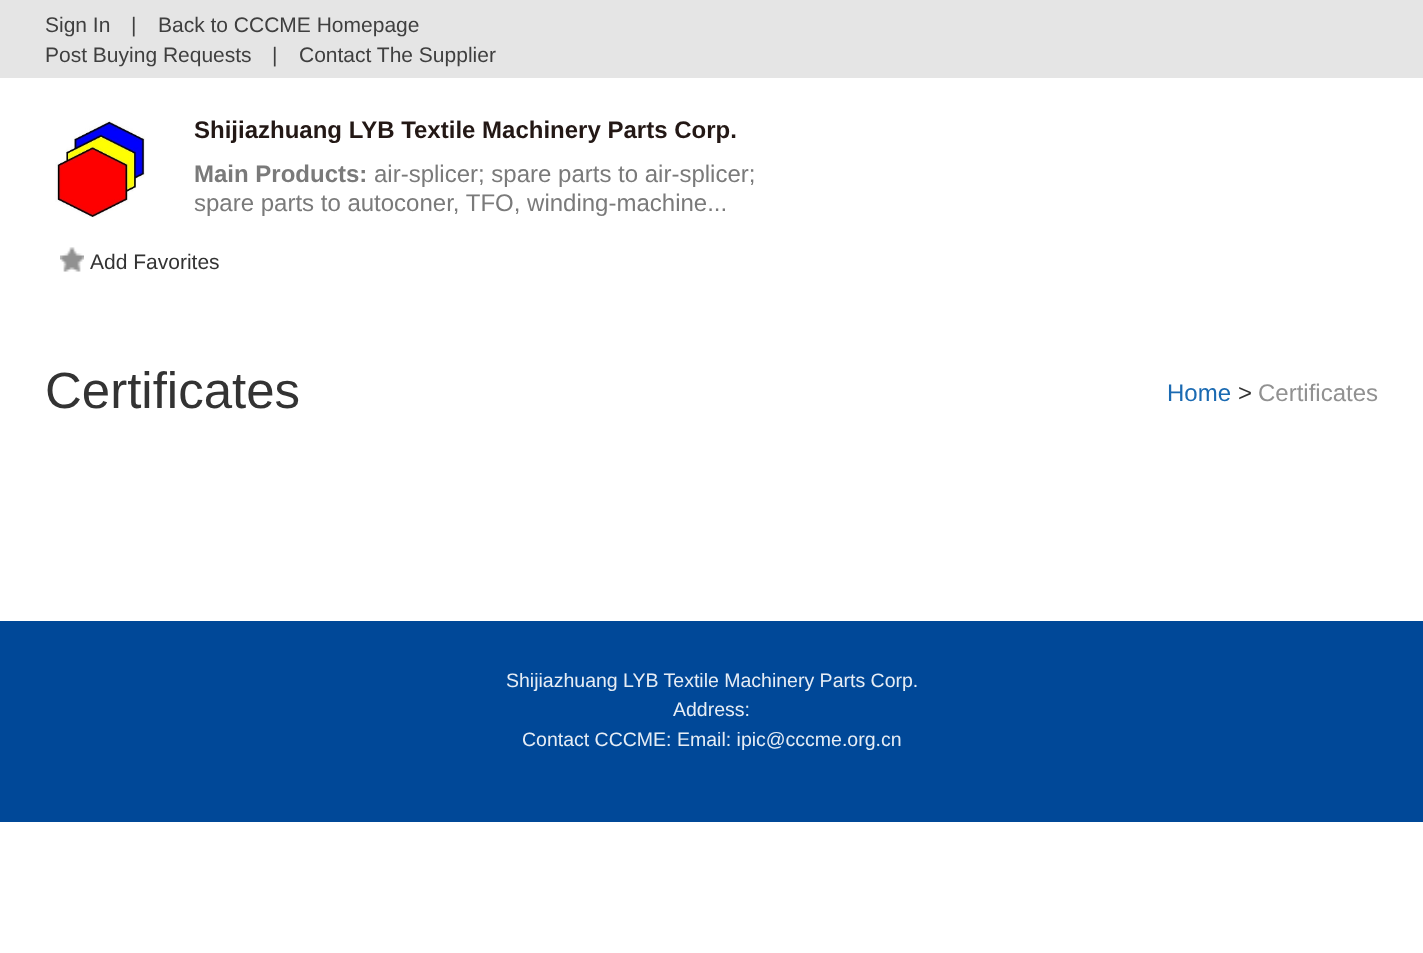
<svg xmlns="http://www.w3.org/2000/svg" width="1423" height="953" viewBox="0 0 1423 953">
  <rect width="100%" height="100%" fill="rgb(255,255,255)"/>
  <rect x="0" y="0" width="1423" height="78" fill="rgb(229,229,229)"/>
  <g font-family="Liberation Sans" font-size="21" fill="rgb(63,63,63)">
    <text x="45" y="32">Sign In</text>
    <text x="131" y="32">|</text>
    <text x="158" y="32">Back to CCCME Homepage</text>
    <text x="45" y="62">Post Buying Requests</text>
    <text x="272" y="62">|</text>
    <text x="299" y="62">Contact The Supplier</text>
  </g>
  <image x="55" y="120" width="90" height="98" href="pic1.png"/>
  <text x="194" y="138" font-family="Liberation Sans" font-size="24" font-weight="bold" fill="rgb(35,24,21)">Shijiazhuang LYB Textile Machinery Parts Corp.</text>
  <text x="194" y="182" font-family="Liberation Sans" font-size="24" font-weight="bold" fill="rgb(122,122,122)">Main Products:</text>
  <g font-family="Liberation Sans" font-size="24" fill="rgb(122,122,122)">
    <text x="374" y="182">air-splicer; spare parts to air-splicer;</text>
    <text x="194" y="211">spare parts to autoconer, TFO, winding-machine...</text>
  </g>
  <image x="60" y="247" width="24" height="25" href="pic2.png"/>
  <text x="90" y="269" font-family="Liberation Sans" font-size="21" fill="rgb(51,51,51)">Add Favorites</text>
  <text x="45" y="408" font-family="Liberation Sans" font-size="51" fill="rgb(51,51,51)">Certificates</text>
  <text x="1167" y="401" font-family="Liberation Sans" font-size="24" fill="rgb(26,106,178)">Home</text>
  <text x="1238" y="401" font-family="Liberation Sans" font-size="24" fill="rgb(51,51,51)">&gt;</text>
  <text x="1258" y="401" font-family="Liberation Sans" font-size="24" fill="rgb(145,145,145)">Certificates</text>
  <rect x="0" y="621" width="1423" height="201" fill="rgb(0,72,152)"/>
  <g font-family="Liberation Sans" font-size="19.5" fill="rgb(230,237,245)">
    <text x="506" y="687">Shijiazhuang LYB Textile Machinery Parts Corp.</text>
    <text x="673" y="716">Address:</text>
    <text x="522" y="746">Contact CCCME: Email: ipic@cccme.org.cn</text>
  </g>
</svg>
